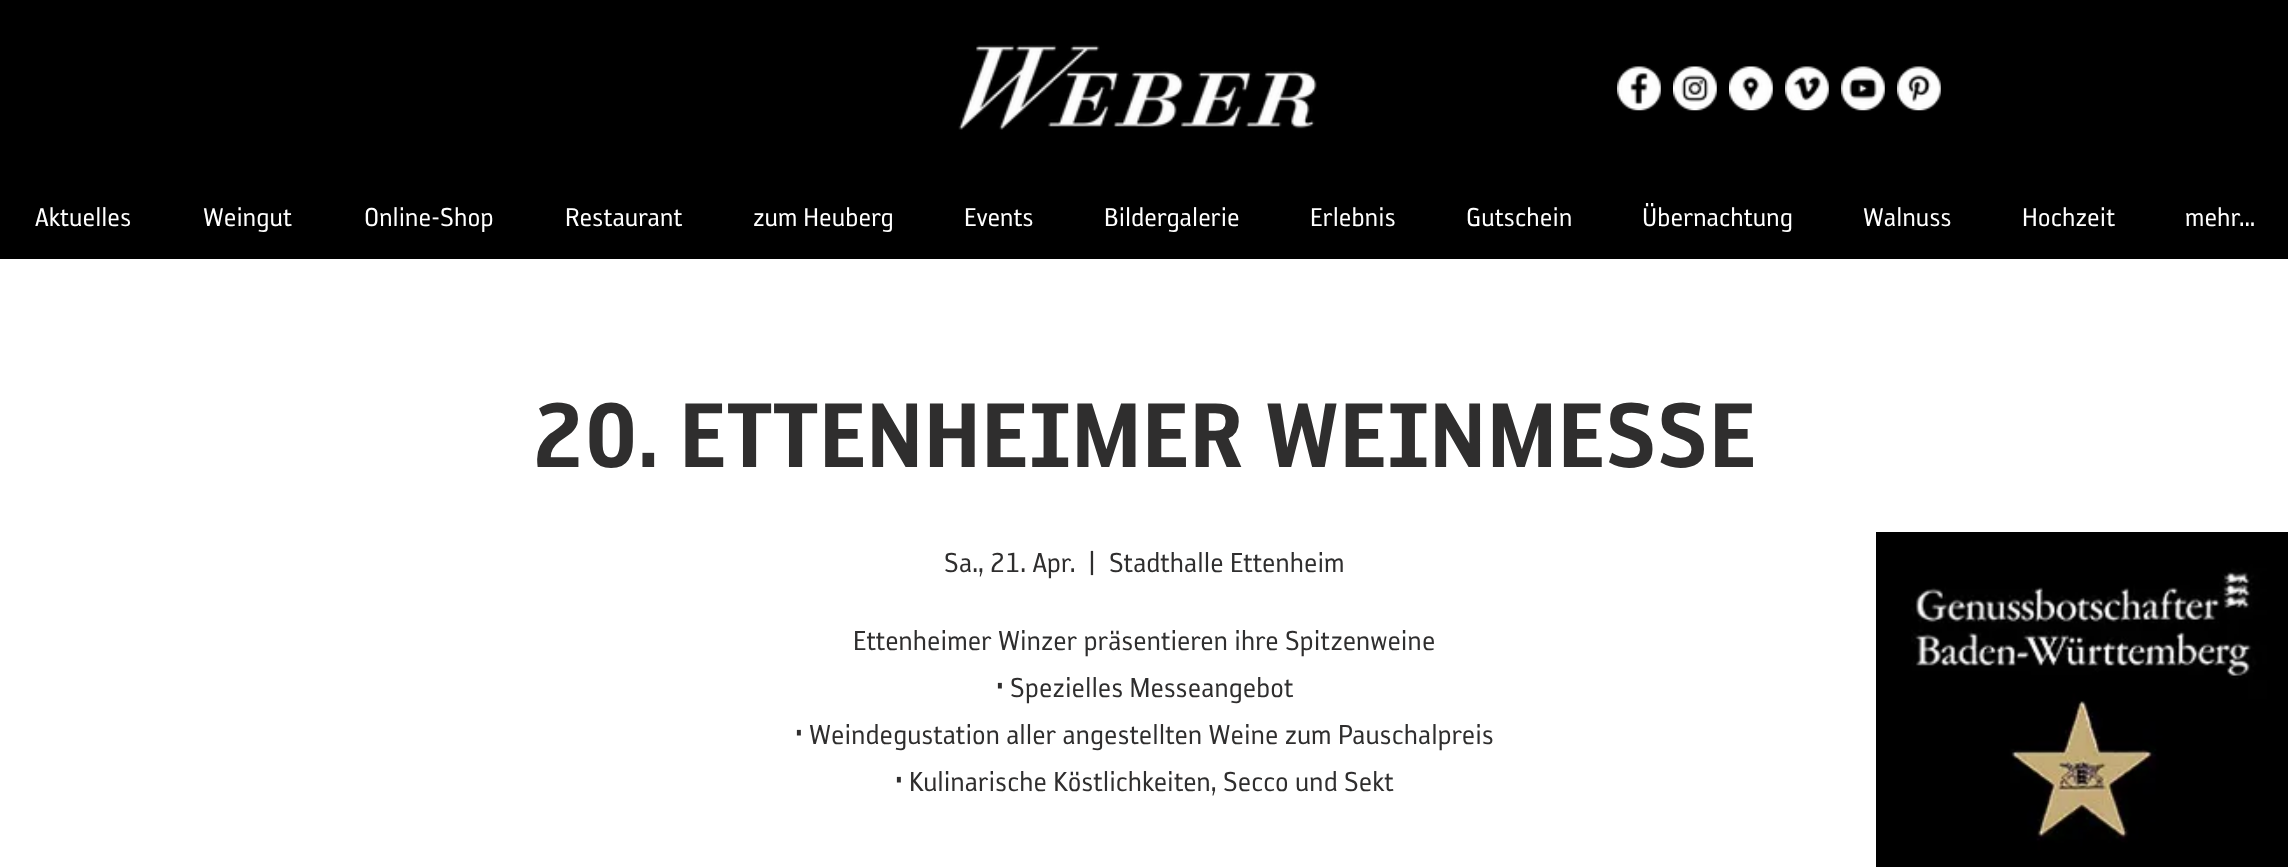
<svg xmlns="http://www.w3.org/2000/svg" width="2288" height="867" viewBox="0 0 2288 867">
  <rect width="100%" height="100%" fill="rgb(255,255,255)"/>
  <rect x="0" y="0" width="2288" height="259" fill="rgb(0,0,0)"/>
  <image x="958" y="45" width="359" height="85" href="pic1.png"/>
  <image x="1617" y="66" width="44" height="45" href="pic2.png"/>
  <image x="1673" y="66" width="44" height="45" href="pic3.png"/>
  <image x="1729" y="66" width="44" height="45" href="pic4.png"/>
  <image x="1785" y="66" width="44" height="45" href="pic5.png"/>
  <image x="1841" y="66" width="44" height="45" href="pic6.png"/>
  <image x="1897" y="66" width="44" height="45" href="pic7.png"/>
  <g font-family="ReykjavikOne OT" font-size="29.75" fill="rgb(255,255,255)">
    <text x="35" y="226">Aktuelles</text>
    <text x="203" y="226">Weingut</text>
    <text x="364" y="226">Online-Shop</text>
    <text x="565" y="226">Restaurant</text>
    <text x="753" y="226">zum Heuberg</text>
    <text x="964" y="226">Events</text>
    <text x="1104" y="226">Bildergalerie</text>
    <text x="1310" y="226">Erlebnis</text>
    <text x="1466" y="226">Gutschein</text>
    <text x="1642" y="226">Übernachtung</text>
    <text x="1863" y="226">Walnuss</text>
    <text x="2022" y="226">Hochzeit</text>
    <text x="2185" y="226">mehr...</text>
  </g>
  <text x="532" y="467" font-family="'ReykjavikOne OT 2'" font-size="105" fill="rgb(47,46,46)">20. ETTENHEIMER WEINMESSE</text>
  <g font-family="ReykjavikOne OT" font-size="31.5" fill="rgb(47,46,46)">
    <text x="944" y="572">Sa., 21. Apr.</text>
    <text x="1088" y="572">|</text>
    <text x="1109" y="572">Stadthalle Ettenheim</text>
    <text x="853" y="650">Ettenheimer Winzer präsentieren ihre Spitzenweine</text>
    <text x="996" y="697">• Spezielles Messeangebot</text>
    <text x="795" y="744">• Weindegustation aller angestellten Weine zum Pauschalpreis</text>
    <text x="895" y="791">• Kulinarische Köstlichkeiten, Secco und Sekt</text>
  </g>
  <image x="1876" y="532" width="412" height="335" href="pic8.png"/>
</svg>
